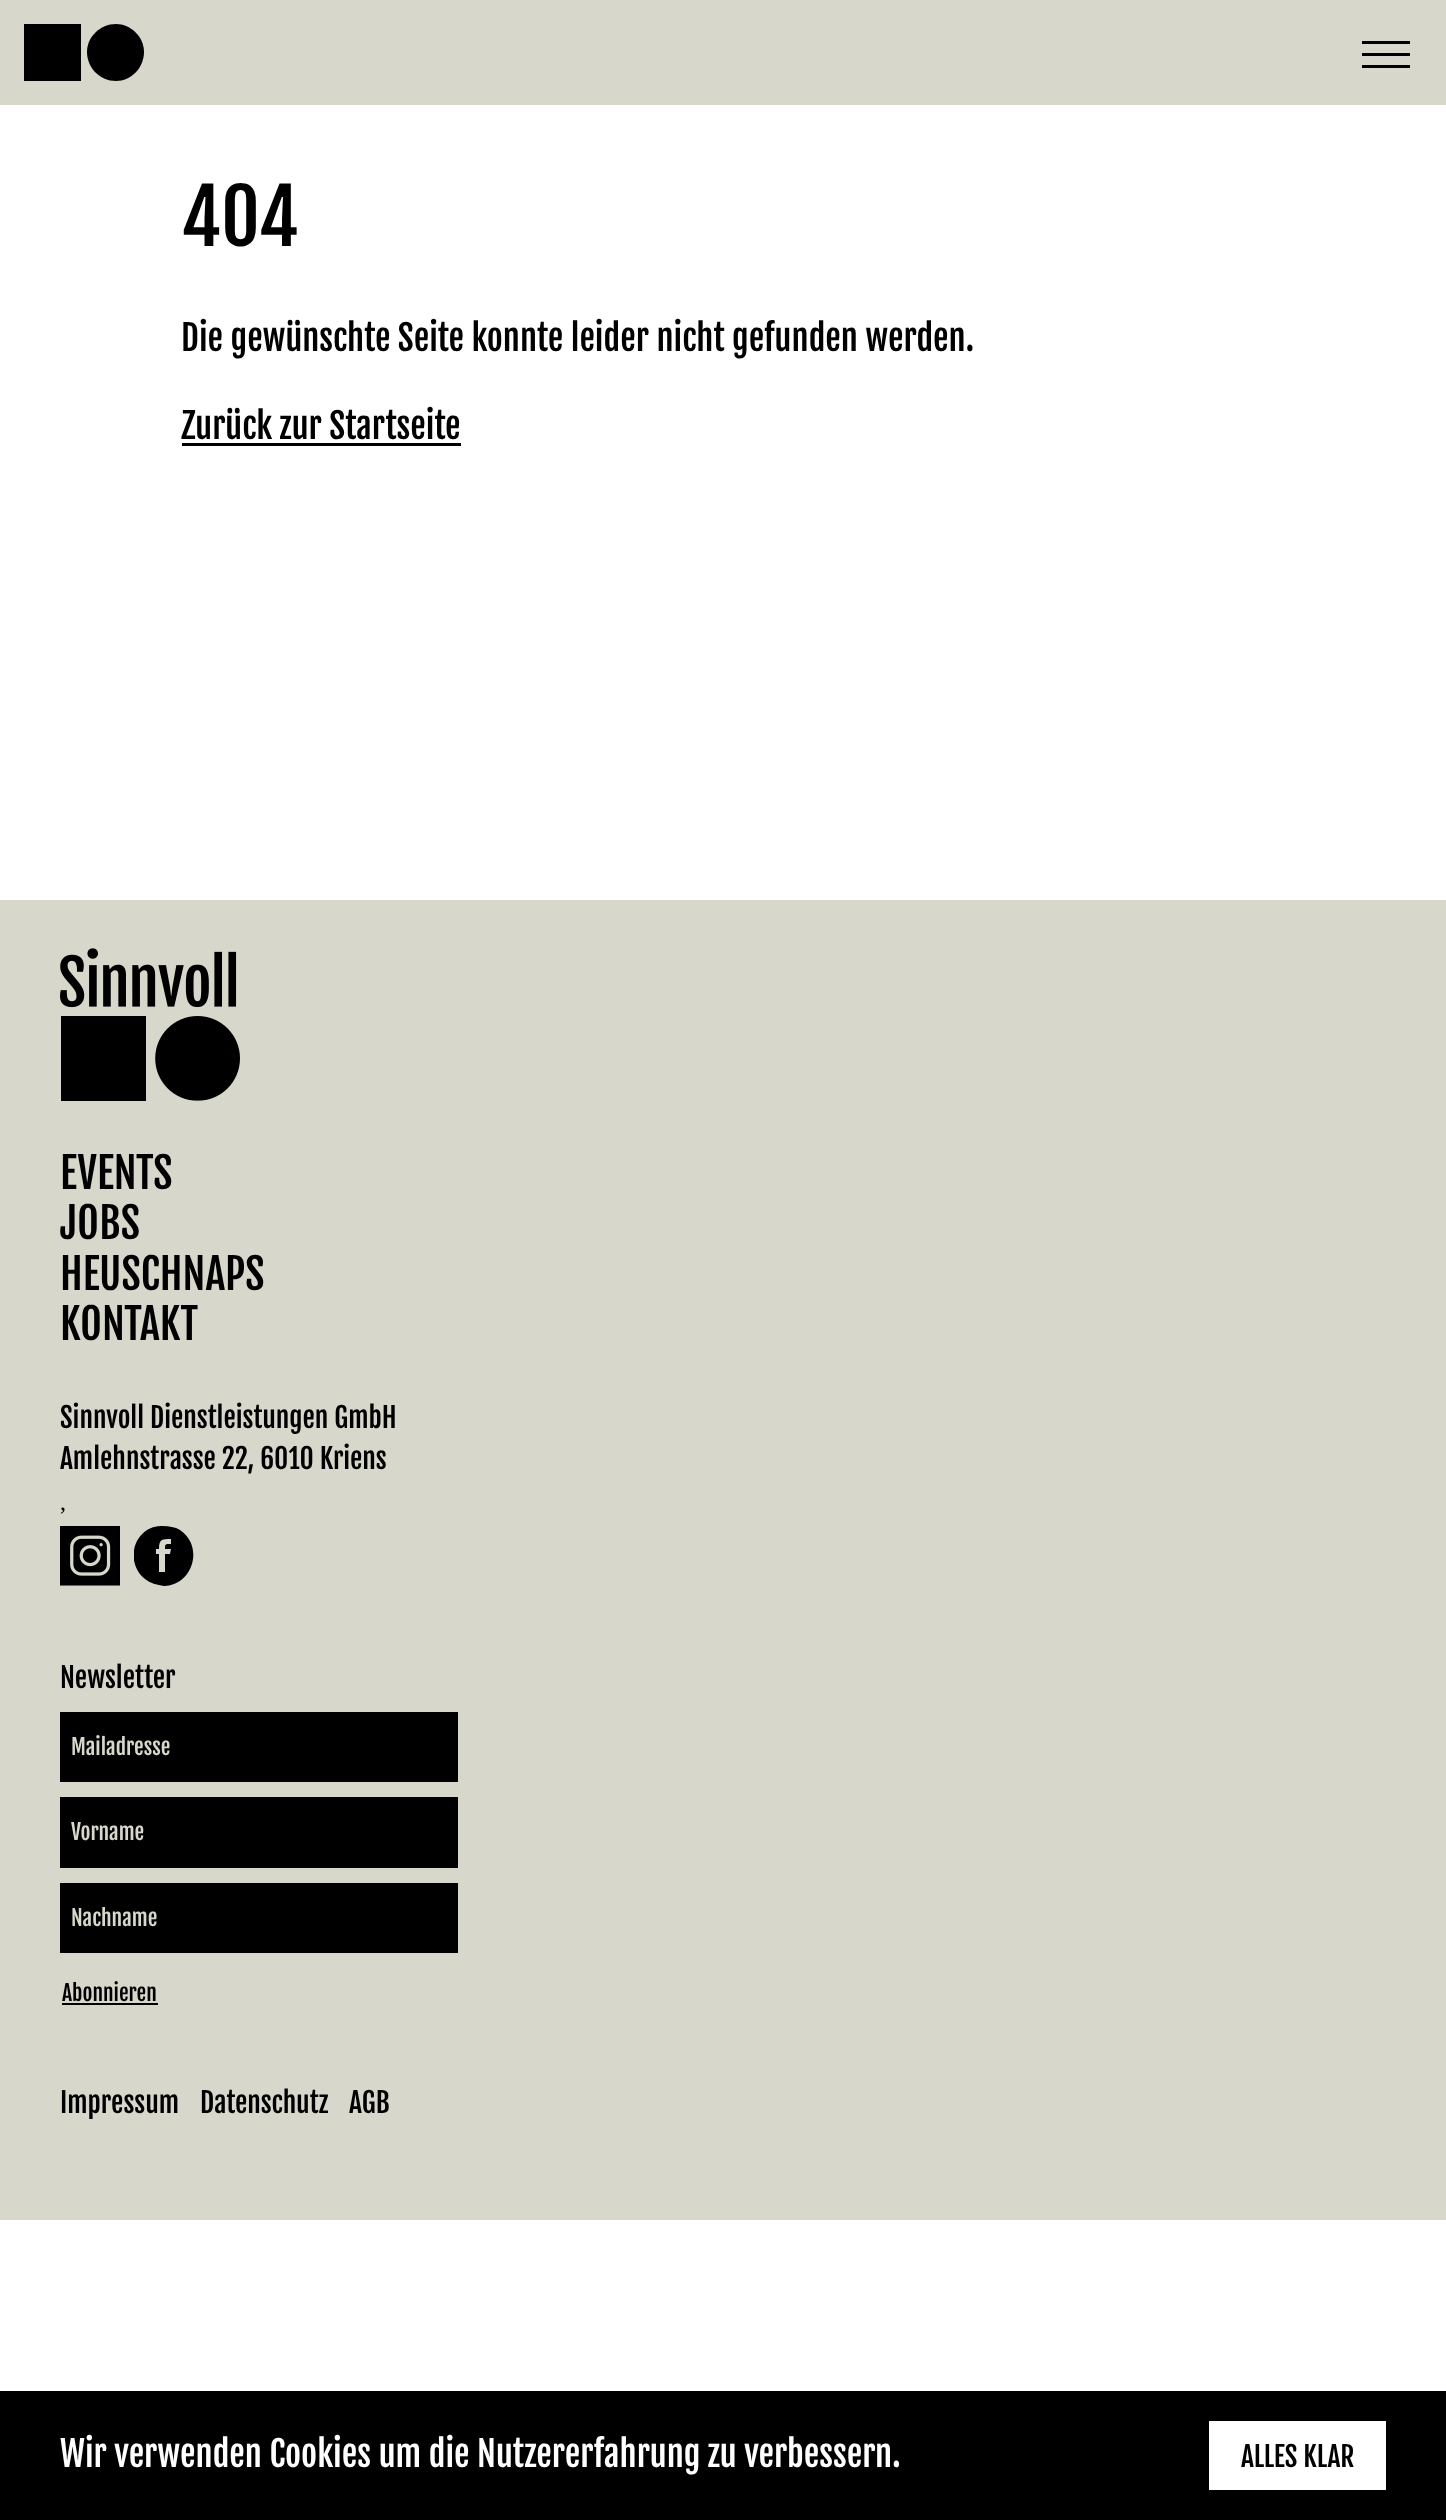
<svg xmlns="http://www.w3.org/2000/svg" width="1446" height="2520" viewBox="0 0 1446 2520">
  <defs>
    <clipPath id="clip1"><rect x="134" y="1526" width="60" height="60"/></clipPath>
  </defs>
  <rect width="100%" height="100%" fill="rgb(255,255,255)"/>
  <rect x="0" y="0" width="1446" height="105" fill="rgb(216,215,203)"/>
  <rect x="24" y="24" width="57" height="57" fill="rgb(0,0,0)"/>
  <path d="M116 81C100 81 87 68 87 52C87 37 100 24 116 24C131 24 144 37 144 52C144 68 131 81 116 81" fill="rgb(0,0,0)"/>
  <rect x="1362" y="41" width="48" height="3" fill="rgb(0,0,0)"/>
  <rect x="1362" y="53" width="48" height="3" fill="rgb(0,0,0)"/>
  <rect x="1362" y="65" width="48" height="3" fill="rgb(0,0,0)"/>
  <text x="181" y="246" font-family="Fjalla One" font-size="75" fill="rgb(0,0,0)">404</text>
  <g font-family="Fjalla One" font-size="34.7" fill="rgb(0,0,0)">
    <text x="181" y="351">Die gewünschte Seite konnte leider nicht gefunden werden.</text>
    <text x="181" y="439">Zurück zur Startseite</text>
  </g>
  <rect x="182" y="443" width="279" height="3" fill="rgb(0,0,0)"/>
  <rect x="0" y="900" width="1446" height="1320" fill="rgb(216,215,203)"/>
  <image x="60" y="948" width="180" height="153" href="pic1.png"/>
  <g font-family="Fjalla One" font-size="42" fill="rgb(0,0,0)">
    <text>
      <tspan x="60" y="1189">EVENTS</tspan>
      <tspan x="60" y="1239">JOBS</tspan>
      <tspan x="60" y="1290">HEUSCHNAPS</tspan>
      <tspan x="60" y="1340">KONTAKT</tspan>
    </text>
  </g>
  <g font-family="Fjalla One" font-size="27.5" fill="rgb(0,0,0)">
    <text>
      <tspan x="60" y="1428">Sinnvoll Dienstleistungen GmbH</tspan>
      <tspan x="60" y="1469">Amlehnstrasse 22, 6010 Kriens</tspan>
    </text>
  </g>
  <text x="60" y="1510" font-family="Liberation Serif" font-size="24" fill="rgb(0,0,0)">,</text>
  <image x="60" y="1526" width="60" height="60" href="pic2.png"/>
  <g clip-path="url(#clip1)">
    <path d="M164 1586C157 1585 150 1583 145 1579C123 1561 135 1525 163 1526C169 1526 175 1527 180 1530C205 1547 192 1586 164 1586ZM156 1549V1554H159V1572H165V1554H170L171 1549H165C165 1544 165 1544 171 1544V1539C162 1539 159 1539 159 1549Z" fill="rgb(0,0,0)"/>
  </g>
  <text x="60" y="1688" font-family="Fjalla One" font-size="27.5" fill="rgb(0,0,0)">Newsletter</text>
  <rect x="60" y="1712" width="398" height="70" fill="rgb(0,0,0)"/>
  <text x="71" y="1755" font-family="Fjalla One" font-size="21.5" fill="rgb(216,215,203)">Mailadresse</text>
  <rect x="60" y="1797" width="398" height="71" fill="rgb(0,0,0)"/>
  <text x="71" y="1840" font-family="Fjalla One" font-size="21.5" fill="rgb(216,215,203)">Vorname</text>
  <rect x="60" y="1883" width="398" height="70" fill="rgb(0,0,0)"/>
  <text x="71" y="1926" font-family="Fjalla One" font-size="21.5" fill="rgb(216,215,203)">Nachname</text>
  <text x="62" y="2001" font-family="Fjalla One" font-size="21.5" fill="rgb(0,0,0)">Abonnieren</text>
  <rect x="62" y="2003" width="96" height="2" fill="rgb(0,0,0)"/>
  <g font-family="Fjalla One" font-size="27.5" fill="rgb(0,0,0)">
    <text x="60" y="2113">Impressum</text>
    <text x="200" y="2113">Datenschutz</text>
    <text x="349" y="2113">AGB</text>
  </g>
  <rect x="0" y="2391" width="1446" height="129" fill="rgb(0,0,0)"/>
  <text x="60" y="2467" font-family="Fjalla One" font-size="34.7" fill="rgb(255,255,255)">Wir verwenden Cookies um die Nutzererfahrung zu verbessern.</text>
  <rect x="1209" y="2421" width="177" height="69" fill="rgb(255,255,255)"/>
  <text x="1241" y="2467" font-family="Fjalla One" font-size="27.5" fill="rgb(0,0,0)">ALLES KLAR</text>
</svg>
